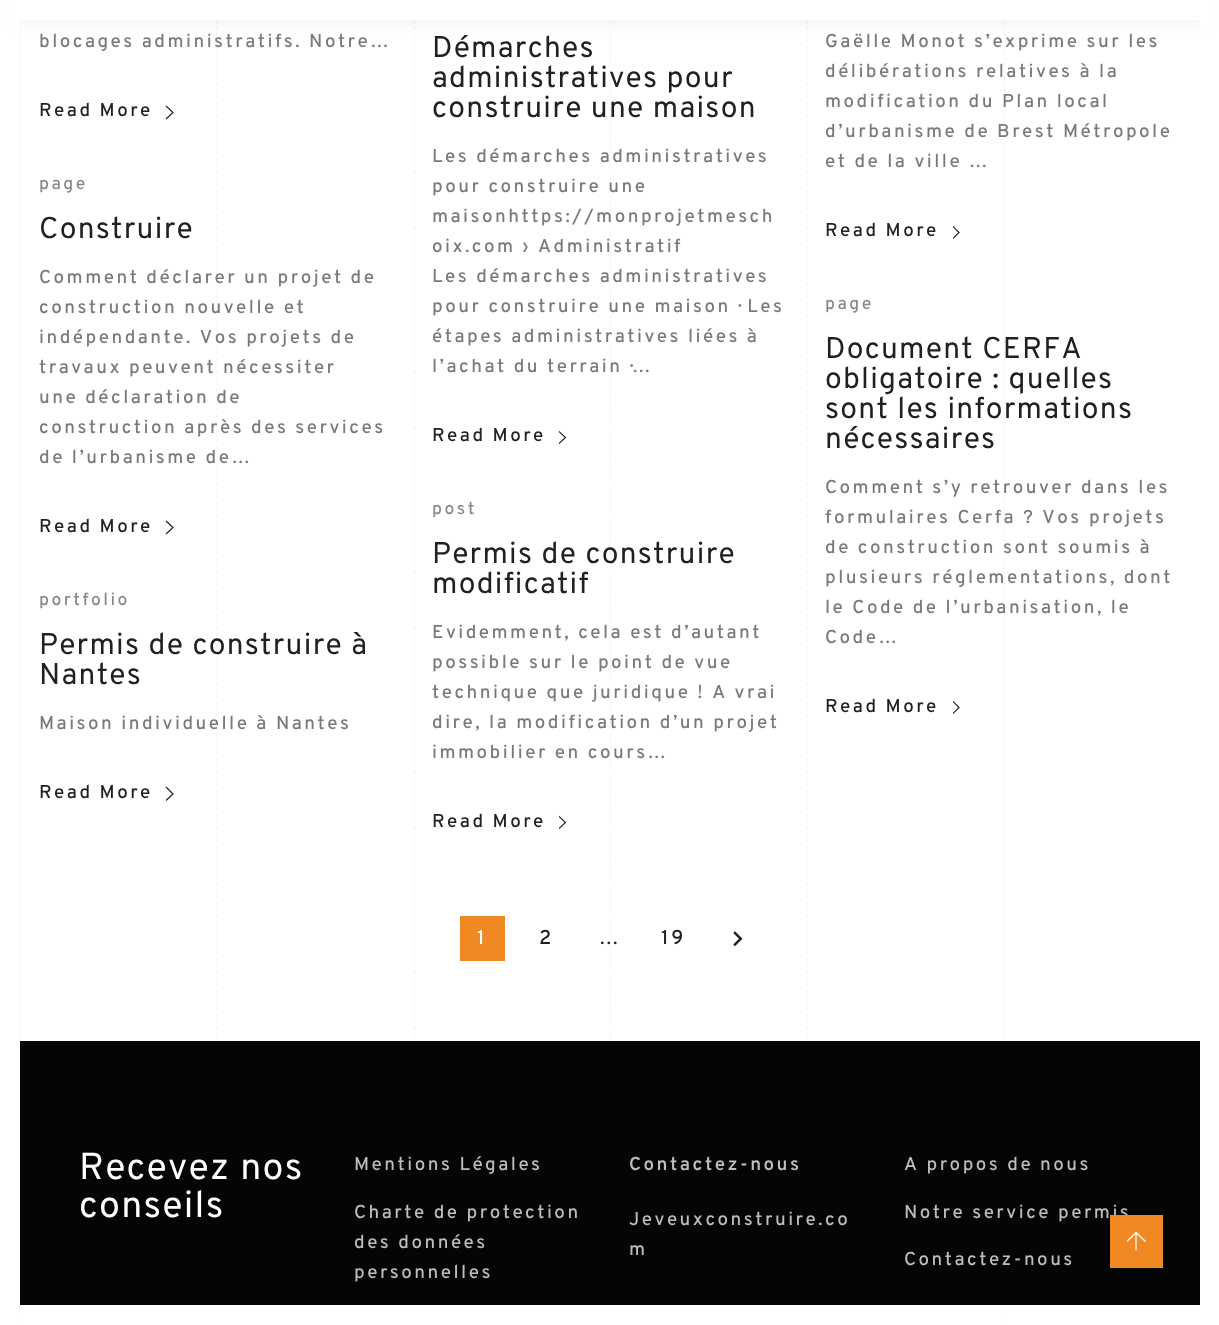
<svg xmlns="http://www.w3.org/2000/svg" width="1219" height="1325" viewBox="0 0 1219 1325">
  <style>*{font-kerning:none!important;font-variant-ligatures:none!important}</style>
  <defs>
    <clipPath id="clip1"><rect x="559" y="430" width="27" height="15"/></clipPath>
    <clipPath id="clip2"><rect x="953" y="225" width="27" height="15"/></clipPath>
    <clipPath id="clip3"><rect x="559" y="815" width="27" height="15"/></clipPath>
    <clipPath id="clip4"><rect x="953" y="700" width="27" height="15"/></clipPath>
  </defs>
  <rect width="100%" height="100%" fill="rgb(255,255,255)"/>
  <path d="M20.5-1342.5V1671" fill="none" stroke="rgb(244,244,244)" stroke-width="1.2" stroke-dasharray="3.75 2.5"/>
  <path d="M217-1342.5V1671" fill="none" stroke="rgb(244,244,244)" stroke-width="1.2" stroke-dasharray="3.75 2.5"/>
  <path d="M414.5-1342.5V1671" fill="none" stroke="rgb(244,244,244)" stroke-width="1.2" stroke-dasharray="3.75 2.5"/>
  <path d="M610.5-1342.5V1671" fill="none" stroke="rgb(244,244,244)" stroke-width="1.2" stroke-dasharray="3.75 2.5"/>
  <path d="M807-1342.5V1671" fill="none" stroke="rgb(244,244,244)" stroke-width="1.2" stroke-dasharray="3.75 2.5"/>
  <path d="M1004.5-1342.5V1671" fill="none" stroke="rgb(244,244,244)" stroke-width="1.2" stroke-dasharray="3.75 2.5"/>
  <rect x="20" y="-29" width="1180" height="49" fill="rgba(157,157,157,0.18)" filter="blur(9.5px)"/>
  <rect x="10" y="0" width="10" height="29" fill="rgb(255,255,255)"/>
  <rect x="20" y="0" width="1180" height="20" fill="rgb(255,255,255)"/>
  <rect x="1200" y="0" width="10" height="25" fill="rgb(255,255,255)"/>
  <rect x="20" y="1307" width="985" height="17" fill="rgb(255,255,255)"/>
  <text x="39" y="47" font-family="Overpass" font-size="18.75" font-weight="500" letter-spacing="2.5" fill="rgb(122,122,122)">blocages administratifs. Notre…</text>
  <text x="39" y="116" font-family="Overpass" font-size="18.75" font-weight="500" letter-spacing="2.5" fill="rgb(33,33,33)">Read More</text>
  <path d="M166 106L173 112.5L166 119" fill="none" stroke="rgb(33,33,33)" stroke-width="1.2"/>
  <g font-family="Overpass" font-size="30" letter-spacing="1.25" fill="rgb(33,33,33)">
    <text>
      <tspan x="432" y="57">Démarches</tspan>
      <tspan x="432" y="87">administratives pour</tspan>
      <tspan x="432" y="117">construire une maison</tspan>
    </text>
  </g>
  <g font-family="Overpass" font-size="18.75" font-weight="500" letter-spacing="2.5" fill="rgb(122,122,122)">
    <text>
      <tspan x="432" y="162">Les démarches administratives</tspan>
      <tspan x="432" y="192">pour construire une</tspan>
      <tspan x="432" y="222">maisonhttps://monprojetmesch</tspan>
      <tspan x="432" y="252">oix.com › Administratif</tspan>
      <tspan x="432" y="282">Les démarches administratives</tspan>
      <tspan x="432" y="312">pour construire une maison · Les</tspan>
      <tspan x="432" y="342">étapes administratives liées à</tspan>
      <tspan x="432" y="372">l’achat du terrain ·…</tspan>
    </text>
  </g>
  <text x="432" y="441" font-family="Overpass" font-size="18.75" font-weight="500" letter-spacing="2.5" fill="rgb(33,33,33)">Read More</text>
  <g clip-path="url(#clip1)">
    <path d="M558.5 431L565.5 437.5L558.5 444" fill="none" stroke="rgb(33,33,33)" stroke-width="1.2"/>
  </g>
  <g font-family="Overpass" font-size="18.75" font-weight="500" letter-spacing="2.5" fill="rgb(122,122,122)">
    <text>
      <tspan x="825" y="47">Gaëlle Monot s’exprime sur les</tspan>
      <tspan x="825" y="77">délibérations relatives à la</tspan>
      <tspan x="825" y="107">modification du Plan local</tspan>
      <tspan x="825" y="137">d’urbanisme de Brest Métropole</tspan>
      <tspan x="825" y="167">et de la ville …</tspan>
    </text>
  </g>
  <text x="825" y="236" font-family="Overpass" font-size="18.75" font-weight="500" letter-spacing="2.5" fill="rgb(33,33,33)">Read More</text>
  <g clip-path="url(#clip2)">
    <path d="M952.5 226L959 232.5L952.5 239" fill="none" stroke="rgb(33,33,33)" stroke-width="1.2"/>
  </g>
  <text x="39" y="189" font-family="Overpass" font-size="17.5" font-weight="500" letter-spacing="2.5" fill="rgb(137,137,137)">page</text>
  <text x="39" y="238" font-family="Overpass" font-size="30" letter-spacing="1.25" fill="rgb(33,33,33)">Construire</text>
  <g font-family="Overpass" font-size="18.75" font-weight="500" letter-spacing="2.5" fill="rgb(122,122,122)">
    <text>
      <tspan x="39" y="283">Comment déclarer un projet de</tspan>
      <tspan x="39" y="313">construction nouvelle et</tspan>
      <tspan x="39" y="343">indépendante. Vos projets de</tspan>
      <tspan x="39" y="373">travaux peuvent nécessiter</tspan>
      <tspan x="39" y="403">une déclaration de</tspan>
      <tspan x="39" y="433">construction après des services</tspan>
      <tspan x="39" y="463">de l’urbanisme de…</tspan>
    </text>
  </g>
  <text x="39" y="532" font-family="Overpass" font-size="18.75" font-weight="500" letter-spacing="2.5" fill="rgb(33,33,33)">Read More</text>
  <path d="M166 521L173 527.5L166 534" fill="none" stroke="rgb(33,33,33)" stroke-width="1.2"/>
  <text x="432" y="514" font-family="Overpass" font-size="17.5" font-weight="500" letter-spacing="2.5" fill="rgb(137,137,137)">post</text>
  <g font-family="Overpass" font-size="30" letter-spacing="1.25" fill="rgb(33,33,33)">
    <text>
      <tspan x="432" y="563">Permis de construire</tspan>
      <tspan x="432" y="593">modificatif</tspan>
    </text>
  </g>
  <g font-family="Overpass" font-size="18.75" font-weight="500" letter-spacing="2.5" fill="rgb(122,122,122)">
    <text>
      <tspan x="432" y="638">Evidemment, cela est d’autant</tspan>
      <tspan x="432" y="668">possible sur le point de vue</tspan>
      <tspan x="432" y="698">technique que juridique ! A vrai</tspan>
      <tspan x="432" y="728">dire, la modification d’un projet</tspan>
      <tspan x="432" y="758">immobilier en cours…</tspan>
    </text>
  </g>
  <text x="432" y="827" font-family="Overpass" font-size="18.75" font-weight="500" letter-spacing="2.5" fill="rgb(33,33,33)">Read More</text>
  <g clip-path="url(#clip3)">
    <path d="M558.5 816L565.5 822.5L558.5 829" fill="none" stroke="rgb(33,33,33)" stroke-width="1.2"/>
  </g>
  <text x="825" y="309" font-family="Overpass" font-size="17.5" font-weight="500" letter-spacing="2.5" fill="rgb(137,137,137)">page</text>
  <g font-family="Overpass" font-size="30" letter-spacing="1.25" fill="rgb(33,33,33)">
    <text>
      <tspan x="825" y="358">Document CERFA</tspan>
      <tspan x="825" y="388">obligatoire : quelles</tspan>
      <tspan x="825" y="418">sont les informations</tspan>
      <tspan x="825" y="448">nécessaires</tspan>
    </text>
  </g>
  <g font-family="Overpass" font-size="18.75" font-weight="500" letter-spacing="2.5" fill="rgb(122,122,122)">
    <text>
      <tspan x="825" y="493">Comment s’y retrouver dans les</tspan>
      <tspan x="825" y="523">formulaires Cerfa ? Vos</tspan>
    </text>
    <text x="1089" y="523">projets</text>
    <text>
      <tspan x="825" y="553">de construction sont soumis à</tspan>
      <tspan x="825" y="583">plusieurs réglementations, dont</tspan>
      <tspan x="825" y="613">le Code de l’urbanisation, le</tspan>
      <tspan x="825" y="643">Code…</tspan>
    </text>
  </g>
  <text x="825" y="712" font-family="Overpass" font-size="18.75" font-weight="500" letter-spacing="2.5" fill="rgb(33,33,33)">Read More</text>
  <g clip-path="url(#clip4)">
    <path d="M952.5 701L959 707.5L952.5 714" fill="none" stroke="rgb(33,33,33)" stroke-width="1.2"/>
  </g>
  <text x="39" y="605" font-family="Overpass" font-size="17.5" font-weight="500" letter-spacing="2.5" fill="rgb(137,137,137)">portfolio</text>
  <g font-family="Overpass" font-size="30" letter-spacing="1.25" fill="rgb(33,33,33)">
    <text>
      <tspan x="39" y="654">Permis de construire à</tspan>
      <tspan x="39" y="684">Nantes</tspan>
    </text>
  </g>
  <text x="39" y="729" font-family="Overpass" font-size="18.75" font-weight="500" letter-spacing="2.5" fill="rgb(122,122,122)">Maison individuelle à Nantes</text>
  <text x="39" y="798" font-family="Overpass" font-size="18.75" font-weight="500" letter-spacing="2.5" fill="rgb(33,33,33)">Read More</text>
  <path d="M166 787L173 794L166 800.5" fill="none" stroke="rgb(33,33,33)" stroke-width="1.2"/>
  <rect x="460" y="916" width="45" height="45" fill="rgb(240,137,35)"/>
  <text x="477" y="944" font-family="Overpass" font-size="20" font-weight="500" letter-spacing="2.5" fill="rgb(255,255,255)">1</text>
  <g font-family="Overpass" font-size="20" font-weight="500" letter-spacing="2.5" fill="rgb(33,33,33)">
    <text x="539" y="944">2</text>
    <text x="599" y="944">…</text>
    <text x="661" y="944">19</text>
  </g>
  <image x="733" y="931" width="10" height="16" href="pic1.png"/>
  <rect x="20" y="1041" width="1180" height="264" fill="rgb(5,5,5)"/>
  <g font-family="Overpass" font-size="37.5" letter-spacing="1.25" fill="rgb(255,255,255)">
    <text>
      <tspan x="79" y="1179">Recevez nos</tspan>
      <tspan x="79" y="1217">conseils</tspan>
    </text>
  </g>
  <g font-family="Overpass" font-size="18.75" font-weight="500" letter-spacing="2.5" fill="rgb(189,189,189)">
    <text x="354" y="1170">Mentions Légales</text>
    <text>
      <tspan x="354" y="1218">Charte de protection</tspan>
      <tspan x="354" y="1248">des données</tspan>
      <tspan x="354" y="1278">personnelles</tspan>
    </text>
  </g>
  <text x="629" y="1170" font-family="Overpass" font-size="18.75" font-weight="600" letter-spacing="2.5" fill="rgb(189,189,189)">Contactez-nous</text>
  <g font-family="Overpass" font-size="18.75" font-weight="500" letter-spacing="2.5" fill="rgb(189,189,189)">
    <text>
      <tspan x="629" y="1225">Jeveuxconstruire.co</tspan>
      <tspan x="629" y="1255">m</tspan>
    </text>
    <text x="904" y="1170">A propos de nous</text>
    <text x="904" y="1218">Notre service permis</text>
    <text x="904" y="1265">Contactez-nous</text>
  </g>
  <rect x="1110" y="1215" width="53" height="53" fill="rgb(240,137,35)"/>
  <path d="M1136 1250V1232.5M1127.5 1241L1136 1232.5L1145 1241" fill="none" stroke="rgb(255,255,255)" stroke-width="1.2" stroke-linecap="round" stroke-linejoin="round"/>
</svg>
